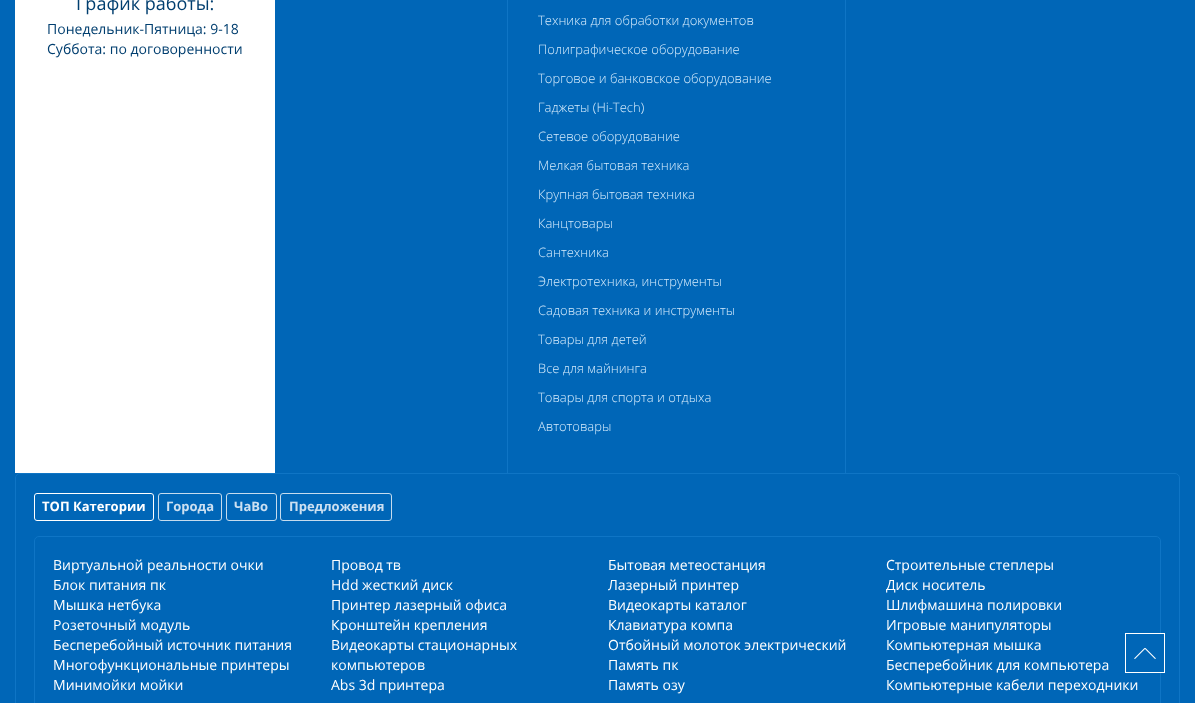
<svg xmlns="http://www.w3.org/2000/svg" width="1195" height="703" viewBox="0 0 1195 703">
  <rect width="100%" height="100%" fill="rgb(0,102,183)"/>
  <rect x="15" y="0" width="260" height="473" fill="rgb(255,255,255)"/>
  <text x="76" y="10" font-family="Open Sans" font-size="18" fill="rgb(0,62,111)">График работы:</text>
  <g font-family="Open Sans" font-size="14" fill="rgb(0,62,111)">
    <text>
      <tspan x="47" y="34">Понедельник-Пятница: 9-18</tspan>
      <tspan x="47" y="54">Суббота: по договоренности</tspan>
    </text>
  </g>
  <rect x="507" y="0" width="1" height="473" fill="rgb(15,117,197)"/>
  <rect x="845" y="0" width="1" height="473" fill="rgb(15,117,197)"/>
  <g font-family="Open Sans" font-size="13" font-weight="300" fill="rgb(214,236,253)">
    <text x="538" y="25">Техника для обработки документов</text>
    <text x="538" y="54">Полиграфическое оборудование</text>
    <text x="538" y="83">Торговое и банковское оборудование</text>
    <text x="538" y="112">Гаджеты (Hi-Tech)</text>
    <text x="538" y="141">Сетевое оборудование</text>
    <text x="538" y="170">Мелкая бытовая техника</text>
    <text x="538" y="199">Крупная бытовая техника</text>
    <text x="538" y="228">Канцтовары</text>
    <text x="538" y="257">Сантехника</text>
    <text x="538" y="286">Электротехника, инструменты</text>
    <text x="538" y="315">Садовая техника и инструменты</text>
    <text x="538" y="344">Товары для детей</text>
    <text x="538" y="373">Все для майнинга</text>
    <text x="538" y="402">Товары для спорта и отдыха</text>
    <text x="538" y="431">Автотовары</text>
  </g>
  <rect x="15.5" y="473.5" width="1164" height="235" rx="4.5" fill="none" stroke="rgb(15,117,197)"/>
  <rect x="34.5" y="493.5" width="119" height="27" rx="2.5" fill="none" stroke="rgb(255,255,255)"/>
  <text x="42" y="511" font-family="Open Sans" font-size="13" font-weight="bold" fill="rgb(255,255,255)">ТОП Категории</text>
  <rect x="158.5" y="493.5" width="63" height="27" rx="2.5" fill="none" stroke="rgb(198,220,238)"/>
  <text x="166" y="511" font-family="Open Sans" font-size="13" font-weight="bold" fill="rgb(204,224,241)">Города</text>
  <rect x="226.5" y="493.5" width="50" height="27" rx="2.5" fill="none" stroke="rgb(198,220,238)"/>
  <text x="234" y="511" font-family="Open Sans" font-size="13" font-weight="bold" fill="rgb(204,224,241)">ЧаВо</text>
  <rect x="280.5" y="493.5" width="111" height="27" rx="2.5" fill="none" stroke="rgb(198,220,238)"/>
  <text x="289" y="511" font-family="Open Sans" font-size="13" font-weight="bold" fill="rgb(204,224,241)">Предложения</text>
  <rect x="34.5" y="536.5" width="1126" height="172" rx="4.5" fill="none" stroke="rgb(15,117,197)"/>
  <g font-family="Open Sans" font-size="14" fill="rgb(255,255,255)">
    <text>
      <tspan x="53" y="570">Виртуальной реальности очки</tspan>
      <tspan x="53" y="590">Блок питания пк</tspan>
      <tspan x="53" y="610">Мышка нетбука</tspan>
      <tspan x="53" y="630">Розеточный модуль</tspan>
      <tspan x="53" y="650">Бесперебойный источник питания</tspan>
      <tspan x="53" y="670">Многофункциональные принтеры</tspan>
      <tspan x="53" y="690">Минимойки мойки</tspan>
    </text>
    <text>
      <tspan x="331" y="570">Провод тв</tspan>
      <tspan x="331" y="590">Hdd жесткий диск</tspan>
      <tspan x="331" y="610">Принтер лазерный офиса</tspan>
      <tspan x="331" y="630">Кронштейн крепления</tspan>
      <tspan x="331" y="650">Видеокарты стационарных</tspan>
      <tspan x="331" y="670">компьютеров</tspan>
      <tspan x="331" y="690">Abs 3d принтера</tspan>
    </text>
    <text>
      <tspan x="608" y="570">Бытовая метеостанция</tspan>
      <tspan x="608" y="590">Лазерный принтер</tspan>
      <tspan x="608" y="610">Видеокарты каталог</tspan>
      <tspan x="608" y="630">Клавиатура компа</tspan>
      <tspan x="608" y="650">Отбойный молоток электрический</tspan>
      <tspan x="608" y="670">Память пк</tspan>
      <tspan x="608" y="690">Память озу</tspan>
    </text>
    <text>
      <tspan x="886" y="570">Строительные степлеры</tspan>
      <tspan x="886" y="590">Диск носитель</tspan>
      <tspan x="886" y="610">Шлифмашина полировки</tspan>
      <tspan x="886" y="630">Игровые манипуляторы</tspan>
      <tspan x="886" y="650">Компьютерная мышка</tspan>
      <tspan x="886" y="670">Бесперебойник для компьютера</tspan>
      <tspan x="886" y="690">Компьютерные кабели переходники</tspan>
    </text>
  </g>
  <rect x="1160" y="634" width="1" height="38" fill="rgb(0,102,183)"/>
  <rect x="1125.5" y="633.5" width="39" height="39" fill="none" stroke="rgb(255,255,255)"/>
  <path d="M1134 658.5L1144.5 648L1145.5 648.5L1135 659Z" fill="rgb(255,255,255)"/>
  <path d="M1145.5 648L1156 658.5L1155 659L1144.5 648.5Z" fill="rgb(255,255,255)"/>
</svg>
